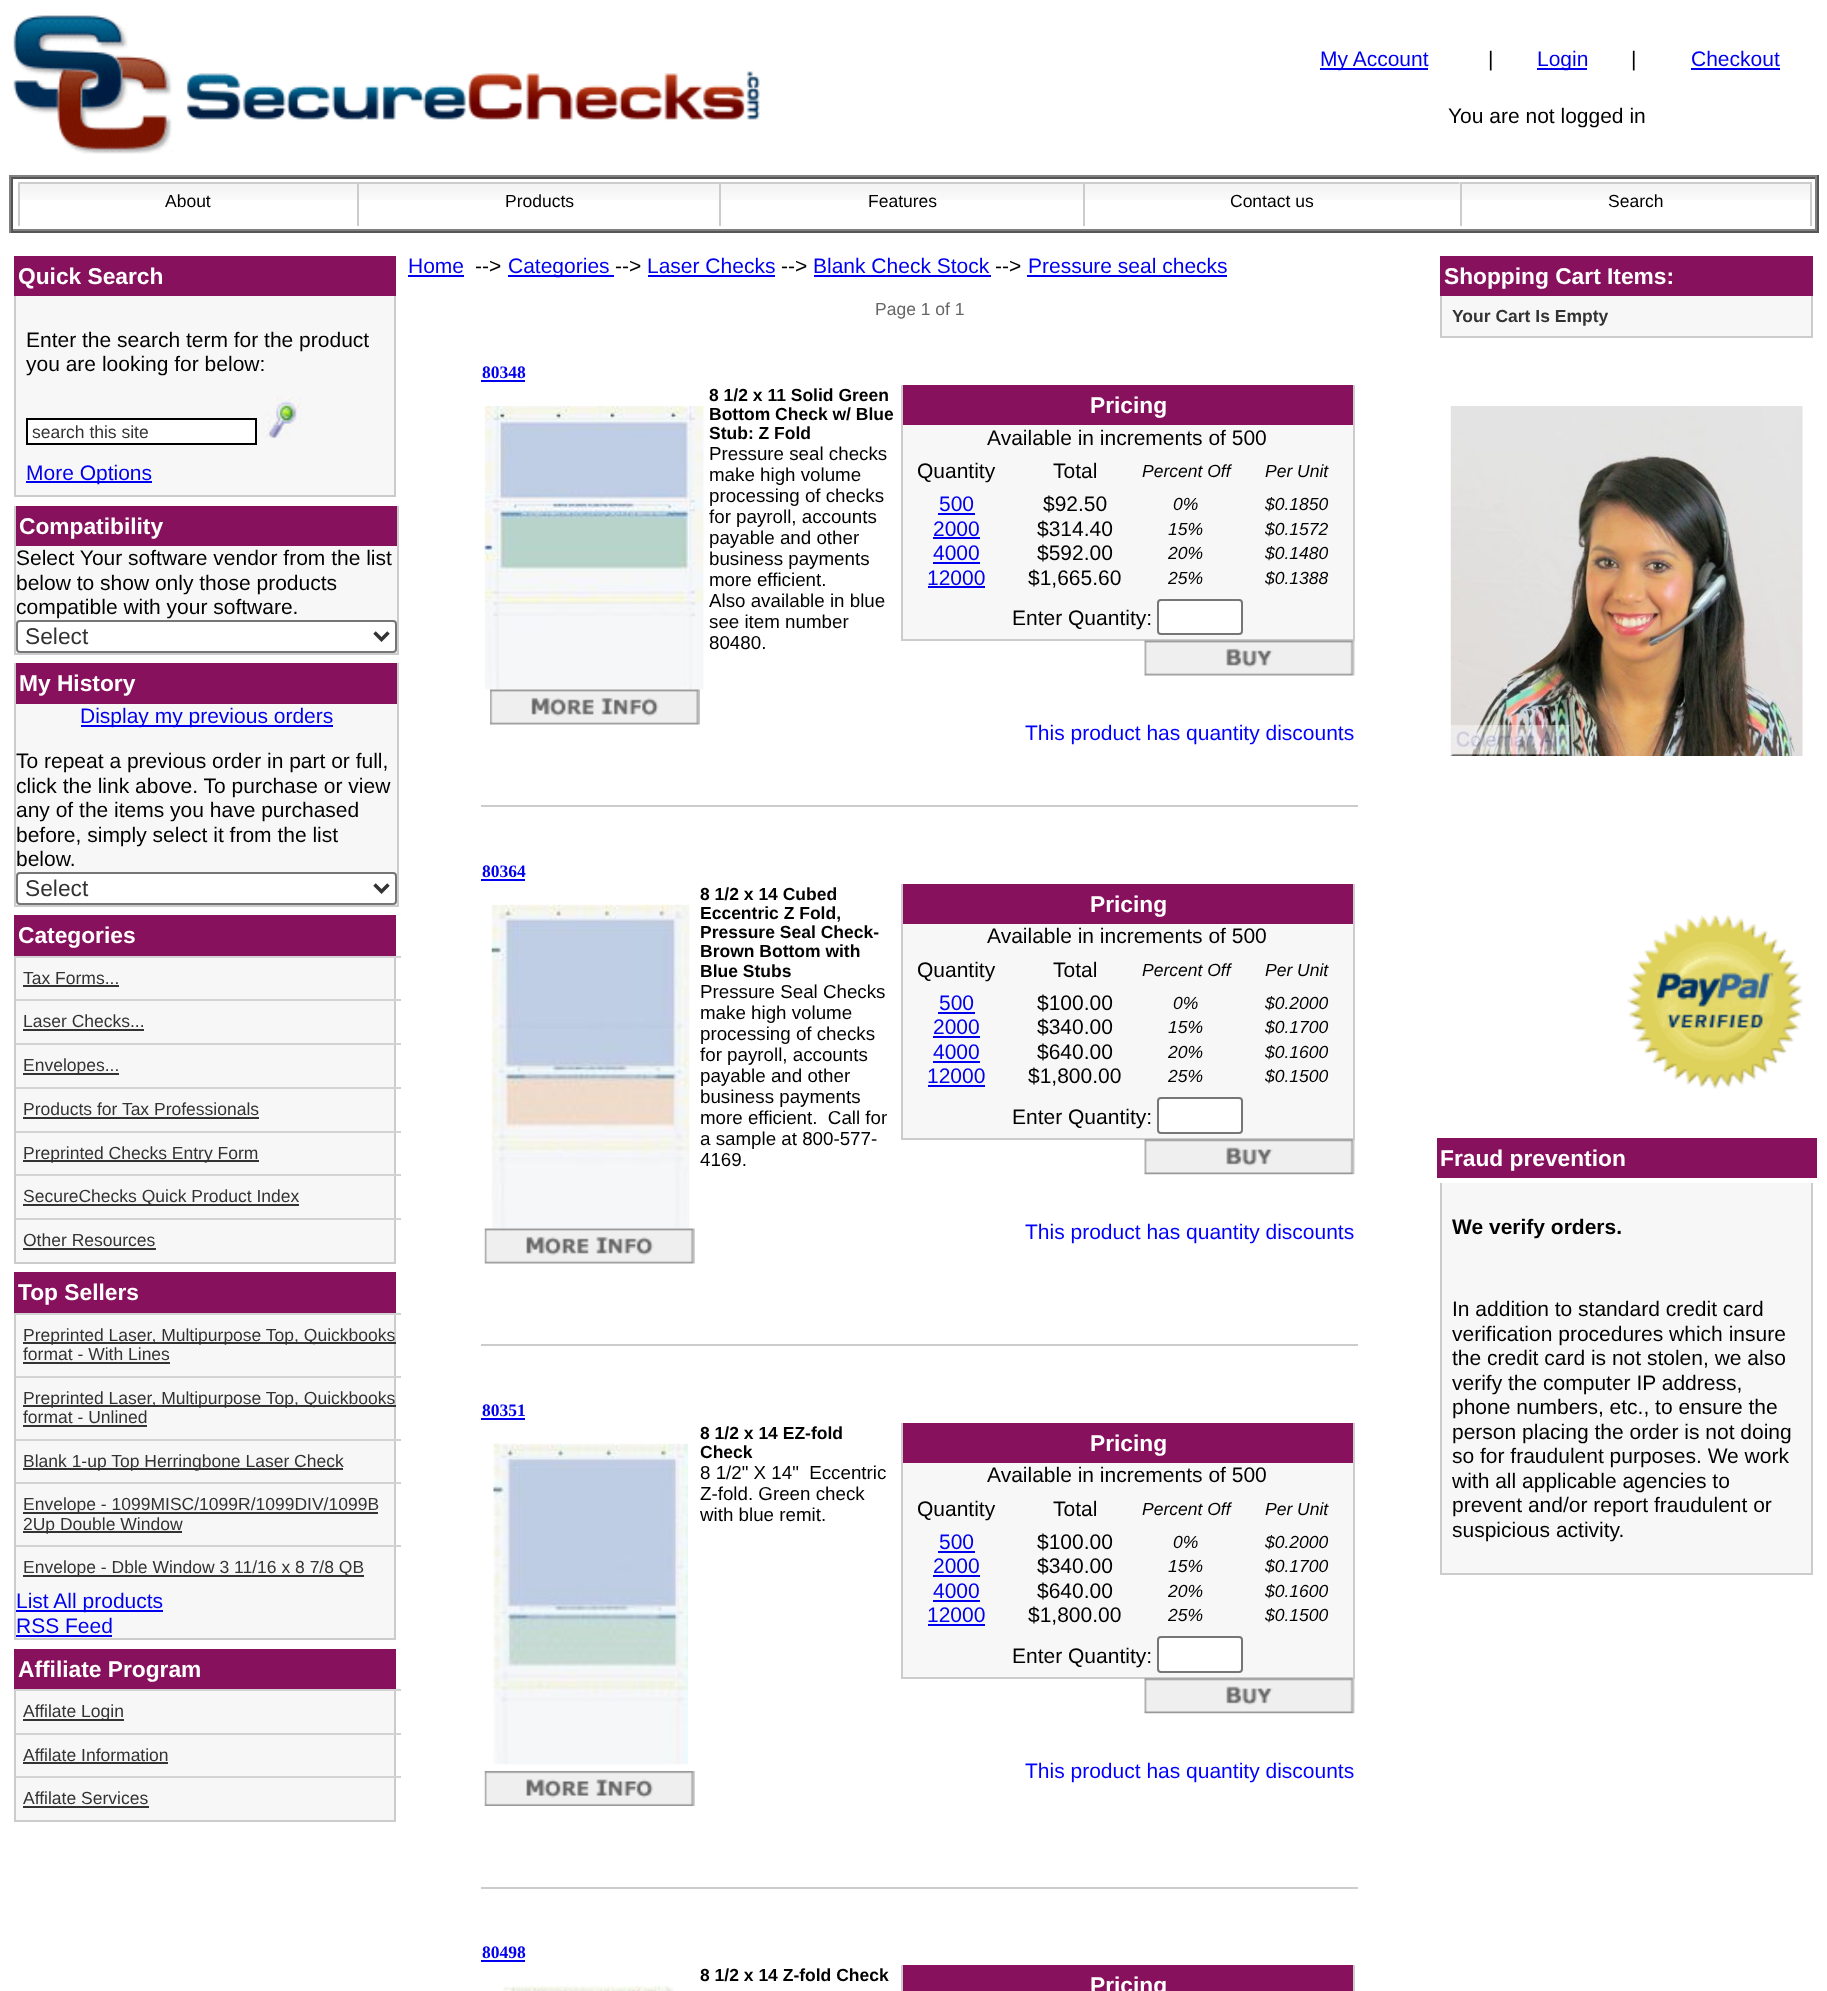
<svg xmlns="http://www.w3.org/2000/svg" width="1827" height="1991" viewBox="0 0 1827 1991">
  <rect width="100%" height="100%" fill="rgb(255,255,255)"/>
  <image x="13" y="15" width="748" height="139" href="pic1.png"/>
  <rect x="1320" y="68" width="108" height="2" fill="rgb(0,0,238)"/>
  <text x="1320" y="66" font-family="Liberation Sans" font-size="21" fill="rgb(0,0,238)">My Account</text>
  <text x="1488" y="66" font-family="Liberation Sans" font-size="21" fill="rgb(0,0,0)">|</text>
  <rect x="1537" y="68" width="50" height="2" fill="rgb(0,0,238)"/>
  <text x="1537" y="66" font-family="Liberation Sans" font-size="21" fill="rgb(0,0,238)">Login</text>
  <text x="1631" y="66" font-family="Liberation Sans" font-size="21" fill="rgb(0,0,0)">|</text>
  <text x="1691" y="66" font-family="Liberation Sans" font-size="21" fill="rgb(0,0,238)">Checkout</text>
  <rect x="1691" y="68" width="89" height="2" fill="rgb(0,0,238)"/>
  <text x="1448" y="123" font-family="Liberation Sans" font-size="21" fill="rgb(0,0,0)">You are not logged in</text>
  <rect x="9" y="175" width="1809" height="2" fill="rgb(128,128,128)"/>
  <rect x="1817" y="175" width="2" height="58" fill="rgb(85,85,85)"/>
  <rect x="9" y="231" width="1809" height="2" fill="rgb(85,85,85)"/>
  <rect x="9" y="175" width="2" height="58" fill="rgb(128,128,128)"/>
  <rect x="11" y="177" width="1806" height="2" fill="rgb(85,85,85)"/>
  <rect x="1815" y="177" width="2" height="54" fill="rgb(128,128,128)"/>
  <rect x="11" y="229" width="1806" height="2" fill="rgb(128,128,128)"/>
  <rect x="11" y="177" width="2" height="54" fill="rgb(85,85,85)"/>
  <image x="17" y="184" width="340" height="16" href="pic2.png"/>
  <rect x="18" y="182" width="1443" height="2" fill="rgb(204,204,204)"/>
  <rect x="18" y="182" width="2" height="44" fill="rgb(204,204,204)"/>
  <text x="165" y="207" font-family="Liberation Sans" font-size="17.5" fill="rgb(0,0,0)">About</text>
  <image x="359" y="184" width="360" height="16" href="pic3.png"/>
  <rect x="357" y="182" width="2" height="44" fill="rgb(204,204,204)"/>
  <text x="505" y="207" font-family="Liberation Sans" font-size="17.5" fill="rgb(0,0,0)">Products</text>
  <image x="721" y="184" width="362" height="16" href="pic4.png"/>
  <rect x="719" y="182" width="2" height="44" fill="rgb(204,204,204)"/>
  <text x="868" y="207" font-family="Liberation Sans" font-size="17.5" fill="rgb(0,0,0)">Features</text>
  <image x="1085" y="184" width="375" height="16" href="pic5.png"/>
  <rect x="1083" y="182" width="2" height="44" fill="rgb(204,204,204)"/>
  <text x="1230" y="207" font-family="Liberation Sans" font-size="17.5" fill="rgb(0,0,0)">Contact us</text>
  <image x="1459" y="182" width="351" height="18" href="pic6.png"/>
  <rect x="1460" y="182" width="351" height="2" fill="rgb(204,204,204)"/>
  <rect x="1810" y="182" width="2" height="44" fill="rgb(204,204,204)"/>
  <rect x="1460" y="182" width="2" height="44" fill="rgb(204,204,204)"/>
  <text x="1608" y="207" font-family="Liberation Sans" font-size="17.5" fill="rgb(0,0,0)">Search</text>
  <rect x="14" y="256" width="382" height="40" fill="rgb(136,17,94)"/>
  <text x="18" y="284" font-family="Liberation Sans" font-size="22.75" font-weight="bold" fill="rgb(255,255,255)">Quick Search</text>
  <rect x="16" y="296" width="378" height="199" fill="rgb(247,247,247)"/>
  <rect x="394" y="296" width="2" height="201" fill="rgb(204,204,204)"/>
  <rect x="14" y="495" width="382" height="2" fill="rgb(204,204,204)"/>
  <rect x="14" y="296" width="2" height="201" fill="rgb(204,204,204)"/>
  <g font-family="Liberation Sans" font-size="21" fill="rgb(0,0,0)">
    <text>
      <tspan x="26" y="347">Enter the search term for the product</tspan>
      <tspan x="26" y="371">you are looking for below:</tspan>
    </text>
  </g>
  <rect x="27" y="419" width="229" height="25" fill="rgb(255,255,255)" stroke="rgb(0,0,0)" stroke-width="2"/>
  <text x="32" y="438" font-family="Liberation Sans" font-size="17.5" fill="rgb(51,51,51)">search this site</text>
  <image x="262" y="397" width="39" height="41" href="pic7.png"/>
  <rect x="26" y="481" width="126" height="2" fill="rgb(0,0,238)"/>
  <text x="26" y="480" font-family="Liberation Sans" font-size="21" fill="rgb(0,0,238)">More Options</text>
  <rect x="16" y="546" width="381" height="107" fill="rgb(247,247,247)"/>
  <rect x="397" y="506" width="2" height="149" fill="rgb(204,204,204)"/>
  <rect x="14" y="653" width="385" height="2" fill="rgb(204,204,204)"/>
  <rect x="14" y="506" width="2" height="149" fill="rgb(204,204,204)"/>
  <rect x="16" y="506" width="381" height="40" fill="rgb(136,17,94)"/>
  <text x="19" y="534" font-family="Liberation Sans" font-size="22.75" font-weight="bold" fill="rgb(255,255,255)">Compatibility</text>
  <g font-family="Liberation Sans" font-size="21" fill="rgb(0,0,0)">
    <text>
      <tspan x="16" y="565">Select Your software vendor from the list</tspan>
      <tspan x="16" y="590">below to show only those products</tspan>
      <tspan x="16" y="614">compatible with your software.</tspan>
    </text>
  </g>
  <rect x="17" y="621" width="379" height="31" rx="3" fill="rgb(255,255,255)" stroke="rgb(118,118,118)" stroke-width="2"/>
  <path d="M374.5 632.5L381.5 639.5L388.5 632.5" fill="none" stroke="rgb(51,51,51)" stroke-width="3.5"/>
  <text x="25" y="644" font-family="Liberation Sans" font-size="22.75" fill="rgb(51,51,51)">Select</text>
  <rect x="16" y="704" width="381" height="201" fill="rgb(247,247,247)"/>
  <rect x="397" y="663" width="2" height="244" fill="rgb(204,204,204)"/>
  <rect x="14" y="905" width="385" height="2" fill="rgb(204,204,204)"/>
  <rect x="14" y="663" width="2" height="244" fill="rgb(204,204,204)"/>
  <rect x="16" y="663" width="381" height="41" fill="rgb(136,17,94)"/>
  <text x="19" y="691" font-family="Liberation Sans" font-size="22.75" font-weight="bold" fill="rgb(255,255,255)">My History</text>
  <rect x="81" y="725" width="252" height="2" fill="rgb(0,0,238)"/>
  <text x="80" y="723" font-family="Liberation Sans" font-size="21" fill="rgb(0,0,238)">Display my previous orders</text>
  <g font-family="Liberation Sans" font-size="21" fill="rgb(0,0,0)">
    <text>
      <tspan x="16" y="768">To repeat a previous order in part or full,</tspan>
      <tspan x="16" y="793">click the link above. To purchase or view</tspan>
      <tspan x="16" y="817">any of the items you have purchased</tspan>
      <tspan x="16" y="842">before, simply select it from the list</tspan>
      <tspan x="16" y="866">below.</tspan>
    </text>
  </g>
  <rect x="17" y="873" width="379" height="31" rx="3" fill="rgb(255,255,255)" stroke="rgb(118,118,118)" stroke-width="2"/>
  <path d="M374.5 884.5L381.5 891.5L388.5 884.5" fill="none" stroke="rgb(51,51,51)" stroke-width="3.5"/>
  <text x="25" y="896" font-family="Liberation Sans" font-size="22.75" fill="rgb(51,51,51)">Select</text>
  <rect x="14" y="915" width="382" height="41" fill="rgb(136,17,94)"/>
  <text x="18" y="943" font-family="Liberation Sans" font-size="22.75" font-weight="bold" fill="rgb(255,255,255)">Categories</text>
  <rect x="16" y="958" width="378" height="304" fill="rgb(247,247,247)"/>
  <rect x="394" y="956" width="2" height="308" fill="rgb(204,204,204)"/>
  <rect x="14" y="1262" width="382" height="2" fill="rgb(204,204,204)"/>
  <rect x="14" y="956" width="2" height="308" fill="rgb(204,204,204)"/>
  <rect x="16" y="956" width="385" height="2" fill="rgb(211,211,211)"/>
  <text x="23" y="984" font-family="Liberation Sans" font-size="17.5" fill="rgb(51,51,51)">Tax Forms...</text>
  <rect x="23" y="985" width="96" height="2" fill="rgb(51,51,51)"/>
  <rect x="16" y="999" width="385" height="2" fill="rgb(211,211,211)"/>
  <text x="23" y="1027" font-family="Liberation Sans" font-size="17.5" fill="rgb(51,51,51)">Laser Checks...</text>
  <rect x="23" y="1029" width="121" height="2" fill="rgb(51,51,51)"/>
  <rect x="16" y="1043" width="385" height="2" fill="rgb(211,211,211)"/>
  <rect x="23" y="1073" width="96" height="2" fill="rgb(51,51,51)"/>
  <text x="23" y="1071" font-family="Liberation Sans" font-size="17.5" fill="rgb(51,51,51)">Envelopes...</text>
  <rect x="16" y="1087" width="385" height="2" fill="rgb(211,211,211)"/>
  <text x="23" y="1115" font-family="Liberation Sans" font-size="17.5" fill="rgb(51,51,51)">Products for Tax Professionals</text>
  <rect x="23" y="1117" width="236" height="2" fill="rgb(51,51,51)"/>
  <rect x="16" y="1131" width="385" height="2" fill="rgb(211,211,211)"/>
  <rect x="23" y="1160" width="236" height="2" fill="rgb(51,51,51)"/>
  <text x="23" y="1159" font-family="Liberation Sans" font-size="17.5" fill="rgb(51,51,51)">Preprinted Checks Entry Form</text>
  <rect x="16" y="1174" width="385" height="2" fill="rgb(211,211,211)"/>
  <rect x="23" y="1204" width="276" height="2" fill="rgb(51,51,51)"/>
  <text x="23" y="1202" font-family="Liberation Sans" font-size="17.5" fill="rgb(51,51,51)">SecureChecks Quick Product Index</text>
  <rect x="16" y="1218" width="385" height="2" fill="rgb(211,211,211)"/>
  <text x="23" y="1246" font-family="Liberation Sans" font-size="17.5" fill="rgb(51,51,51)">Other Resources</text>
  <rect x="23" y="1248" width="133" height="2" fill="rgb(51,51,51)"/>
  <rect x="14" y="1272" width="382" height="41" fill="rgb(136,17,94)"/>
  <text x="18" y="1300" font-family="Liberation Sans" font-size="22.75" font-weight="bold" fill="rgb(255,255,255)">Top Sellers</text>
  <rect x="16" y="1315" width="378" height="323" fill="rgb(247,247,247)"/>
  <rect x="394" y="1313" width="2" height="327" fill="rgb(204,204,204)"/>
  <rect x="14" y="1638" width="382" height="2" fill="rgb(204,204,204)"/>
  <rect x="14" y="1313" width="2" height="327" fill="rgb(204,204,204)"/>
  <rect x="16" y="1313" width="385" height="2" fill="rgb(211,211,211)"/>
  <rect x="23" y="1342" width="373" height="2" fill="rgb(51,51,51)"/>
  <g font-family="Liberation Sans" font-size="17.5" fill="rgb(51,51,51)">
    <text>
      <tspan x="23" y="1341">Preprinted Laser, Multipurpose Top, Quickbooks</tspan>
      <tspan x="23" y="1360">format - With Lines</tspan>
    </text>
  </g>
  <rect x="23" y="1362" width="147" height="2" fill="rgb(51,51,51)"/>
  <rect x="16" y="1376" width="385" height="2" fill="rgb(211,211,211)"/>
  <rect x="23" y="1405" width="373" height="2" fill="rgb(51,51,51)"/>
  <g font-family="Liberation Sans" font-size="17.5" fill="rgb(51,51,51)">
    <text>
      <tspan x="23" y="1404">Preprinted Laser, Multipurpose Top, Quickbooks</tspan>
      <tspan x="23" y="1423">format - Unlined</tspan>
    </text>
  </g>
  <rect x="23" y="1425" width="124" height="2" fill="rgb(51,51,51)"/>
  <rect x="16" y="1439" width="385" height="2" fill="rgb(211,211,211)"/>
  <rect x="23" y="1468" width="320" height="2" fill="rgb(51,51,51)"/>
  <text x="23" y="1467" font-family="Liberation Sans" font-size="17.5" fill="rgb(51,51,51)">Blank 1-up Top Herringbone Laser Check</text>
  <rect x="16" y="1482" width="385" height="2" fill="rgb(211,211,211)"/>
  <rect x="23" y="1512" width="355" height="2" fill="rgb(51,51,51)"/>
  <text x="23" y="1510" font-family="Liberation Sans" font-size="17.5" fill="rgb(51,51,51)">Envelope - 1099MISC/1099R/1099DIV/1099B</text>
  <rect x="23" y="1531" width="159" height="2" fill="rgb(51,51,51)"/>
  <text x="23" y="1530" font-family="Liberation Sans" font-size="17.5" fill="rgb(51,51,51)">2Up Double Window</text>
  <rect x="16" y="1545" width="385" height="2" fill="rgb(211,211,211)"/>
  <rect x="23" y="1575" width="341" height="2" fill="rgb(51,51,51)"/>
  <text x="23" y="1573" font-family="Liberation Sans" font-size="17.5" fill="rgb(51,51,51)">Envelope - Dble Window 3 11/16 x 8 7/8 QB</text>
  <rect x="16" y="1610" width="147" height="2" fill="rgb(0,0,238)"/>
  <g font-family="Liberation Sans" font-size="21" fill="rgb(0,0,238)">
    <text>
      <tspan x="16" y="1608">List All products</tspan>
      <tspan x="16" y="1633">RSS Feed</tspan>
    </text>
  </g>
  <rect x="16" y="1635" width="96" height="2" fill="rgb(0,0,238)"/>
  <rect x="14" y="1649" width="382" height="40" fill="rgb(136,17,94)"/>
  <text x="18" y="1677" font-family="Liberation Sans" font-size="22.75" font-weight="bold" fill="rgb(255,255,255)">Affiliate Program</text>
  <rect x="16" y="1691" width="378" height="129" fill="rgb(247,247,247)"/>
  <rect x="394" y="1689" width="2" height="133" fill="rgb(204,204,204)"/>
  <rect x="14" y="1820" width="382" height="2" fill="rgb(204,204,204)"/>
  <rect x="14" y="1689" width="2" height="133" fill="rgb(204,204,204)"/>
  <rect x="16" y="1689" width="385" height="2" fill="rgb(211,211,211)"/>
  <rect x="23" y="1719" width="101" height="2" fill="rgb(51,51,51)"/>
  <text x="23" y="1717" font-family="Liberation Sans" font-size="17.5" fill="rgb(51,51,51)">Affilate Login</text>
  <rect x="16" y="1733" width="385" height="2" fill="rgb(211,211,211)"/>
  <text x="23" y="1761" font-family="Liberation Sans" font-size="17.5" fill="rgb(51,51,51)">Affilate Information</text>
  <rect x="23" y="1762" width="145" height="2" fill="rgb(51,51,51)"/>
  <rect x="16" y="1776" width="385" height="2" fill="rgb(211,211,211)"/>
  <text x="23" y="1804" font-family="Liberation Sans" font-size="17.5" fill="rgb(51,51,51)">Affilate Services</text>
  <rect x="23" y="1806" width="126" height="2" fill="rgb(51,51,51)"/>
  <text x="408" y="273" font-family="Liberation Sans" font-size="21" fill="rgb(0,0,238)">Home</text>
  <rect x="408" y="275" width="56" height="2" fill="rgb(0,0,238)"/>
  <text x="475" y="273" font-family="Liberation Sans" font-size="21" fill="rgb(0,0,0)">--&gt;</text>
  <rect x="508" y="275" width="106" height="2" fill="rgb(0,0,238)"/>
  <text x="508" y="273" font-family="Liberation Sans" font-size="21" fill="rgb(0,0,238)">Categories</text>
  <text x="615" y="273" font-family="Liberation Sans" font-size="21" fill="rgb(0,0,0)">--&gt;</text>
  <text x="647" y="273" font-family="Liberation Sans" font-size="21" fill="rgb(0,0,238)">Laser Checks</text>
  <rect x="648" y="275" width="127" height="2" fill="rgb(0,0,238)"/>
  <text x="781" y="273" font-family="Liberation Sans" font-size="21" fill="rgb(0,0,0)">--&gt;</text>
  <text x="813" y="273" font-family="Liberation Sans" font-size="21" fill="rgb(0,0,238)">Blank Check Stock</text>
  <rect x="814" y="275" width="177" height="2" fill="rgb(0,0,238)"/>
  <text x="995" y="273" font-family="Liberation Sans" font-size="21" fill="rgb(0,0,0)">--&gt;</text>
  <text x="1028" y="273" font-family="Liberation Sans" font-size="21" fill="rgb(0,0,238)">Pressure seal checks</text>
  <rect x="1027" y="275" width="200" height="2" fill="rgb(0,0,238)"/>
  <text x="875" y="315" font-family="Liberation Sans" font-size="17.5" fill="rgb(102,102,102)">Page 1 of 1</text>
  <text x="482" y="378" font-family="Liberation Serif" font-size="17.5" font-weight="bold" fill="rgb(0,0,238)">80348</text>
  <rect x="481" y="380" width="44" height="2" fill="rgb(0,0,238)"/>
  <image x="484" y="406" width="220" height="284" href="pic8.png"/>
  <image x="490" y="689" width="210" height="36" href="pic9.png"/>
  <g font-family="Liberation Sans" font-size="17.5" font-weight="bold" fill="rgb(0,0,0)">
    <text>
      <tspan x="709" y="401">8 1/2 x 11 Solid Green</tspan>
      <tspan x="709" y="420">Bottom Check w/ Blue</tspan>
      <tspan x="709" y="439">Stub: Z Fold</tspan>
    </text>
  </g>
  <g font-family="Liberation Sans" font-size="18.75" fill="rgb(0,0,0)">
    <text>
      <tspan x="709" y="460">Pressure seal checks</tspan>
      <tspan x="709" y="481">make high volume</tspan>
      <tspan x="709" y="502">processing of checks</tspan>
      <tspan x="709" y="523">for payroll, accounts</tspan>
      <tspan x="709" y="544">payable and other</tspan>
      <tspan x="709" y="565">business payments</tspan>
      <tspan x="709" y="586">more efficient.</tspan>
      <tspan x="709" y="607">Also available in blue</tspan>
      <tspan x="709" y="628">see item number</tspan>
      <tspan x="709" y="649">80480.</tspan>
    </text>
  </g>
  <rect x="903" y="425" width="450" height="214" fill="rgb(247,247,247)"/>
  <rect x="1353" y="385" width="2" height="256" fill="rgb(204,204,204)"/>
  <rect x="901" y="639" width="454" height="2" fill="rgb(204,204,204)"/>
  <rect x="901" y="385" width="2" height="256" fill="rgb(204,204,204)"/>
  <rect x="903" y="385" width="450" height="40" fill="rgb(136,17,94)"/>
  <text x="1090" y="413" font-family="Liberation Sans" font-size="22.75" font-weight="bold" fill="rgb(255,255,255)">Pricing</text>
  <g font-family="Liberation Sans" font-size="21" fill="rgb(0,0,0)">
    <text x="987" y="445">Available in increments of 500</text>
    <text x="917" y="478">Quantity</text>
    <text x="1053" y="478">Total</text>
  </g>
  <g font-family="Liberation Sans" font-size="17.5" font-style="italic" fill="rgb(0,0,0)">
    <text x="1142" y="477">Percent Off</text>
    <text x="1265" y="477">Per Unit</text>
  </g>
  <text x="939" y="511" font-family="Liberation Sans" font-size="21" fill="rgb(0,0,238)">500</text>
  <rect x="938" y="513" width="37" height="2" fill="rgb(0,0,238)"/>
  <text x="1043" y="511" font-family="Liberation Sans" font-size="21" fill="rgb(0,0,0)">$92.50</text>
  <g font-family="Liberation Sans" font-size="17.5" font-style="italic" fill="rgb(0,0,0)">
    <text x="1173" y="510">0%</text>
    <text x="1265" y="510">$0.1850</text>
  </g>
  <text x="933" y="536" font-family="Liberation Sans" font-size="21" fill="rgb(0,0,238)">2000</text>
  <rect x="933" y="537" width="47" height="2" fill="rgb(0,0,238)"/>
  <text x="1037" y="536" font-family="Liberation Sans" font-size="21" fill="rgb(0,0,0)">$314.40</text>
  <g font-family="Liberation Sans" font-size="17.5" font-style="italic" fill="rgb(0,0,0)">
    <text x="1168" y="535">15%</text>
    <text x="1265" y="535">$0.1572</text>
  </g>
  <text x="933" y="560" font-family="Liberation Sans" font-size="21" fill="rgb(0,0,238)">4000</text>
  <rect x="933" y="562" width="47" height="2" fill="rgb(0,0,238)"/>
  <text x="1037" y="560" font-family="Liberation Sans" font-size="21" fill="rgb(0,0,0)">$592.00</text>
  <g font-family="Liberation Sans" font-size="17.5" font-style="italic" fill="rgb(0,0,0)">
    <text x="1168" y="559">20%</text>
    <text x="1265" y="559">$0.1480</text>
  </g>
  <text x="927" y="585" font-family="Liberation Sans" font-size="21" fill="rgb(0,0,238)">12000</text>
  <rect x="928" y="586" width="57" height="2" fill="rgb(0,0,238)"/>
  <text x="1028" y="585" font-family="Liberation Sans" font-size="21" fill="rgb(0,0,0)">$1,665.60</text>
  <g font-family="Liberation Sans" font-size="17.5" font-style="italic" fill="rgb(0,0,0)">
    <text x="1168" y="584">25%</text>
    <text x="1265" y="584">$0.1388</text>
  </g>
  <text x="1012" y="625" font-family="Liberation Sans" font-size="21" fill="rgb(0,0,0)">Enter Quantity:</text>
  <rect x="1158" y="600" width="84" height="34" rx="3" fill="rgb(255,255,255)" stroke="rgb(118,118,118)" stroke-width="2"/>
  <image x="1144" y="640" width="211" height="36" href="pic10.png"/>
  <text x="1025" y="740" font-family="Liberation Sans" font-size="21" fill="rgb(0,0,255)">This product has quantity discounts</text>
  <rect x="481" y="805" width="877" height="2" fill="rgb(204,204,204)"/>
  <text x="482" y="877" font-family="Liberation Serif" font-size="17.5" font-weight="bold" fill="rgb(0,0,238)">80364</text>
  <rect x="481" y="879" width="44" height="2" fill="rgb(0,0,238)"/>
  <image x="491" y="904" width="199" height="325" href="pic11.png"/>
  <image x="484" y="1228" width="211" height="36" href="pic12.png"/>
  <g font-family="Liberation Sans" font-size="17.5" font-weight="bold" fill="rgb(0,0,0)">
    <text>
      <tspan x="700" y="900">8 1/2 x 14 Cubed</tspan>
      <tspan x="700" y="919">Eccentric Z Fold,</tspan>
      <tspan x="700" y="938">Pressure Seal Check-</tspan>
      <tspan x="700" y="957">Brown Bottom with</tspan>
      <tspan x="700" y="977">Blue Stubs</tspan>
    </text>
  </g>
  <g font-family="Liberation Sans" font-size="18.75" fill="rgb(0,0,0)">
    <text xml:space="preserve"><tspan x="700" y="998">Pressure Seal Checks</tspan><tspan x="700" y="1019">make high volume</tspan><tspan x="700" y="1040">processing of checks</tspan><tspan x="700" y="1061">for payroll, accounts</tspan><tspan x="700" y="1082">payable and other</tspan><tspan x="700" y="1103">business payments</tspan><tspan x="700" y="1124">more efficient.  Call for</tspan><tspan x="700" y="1145">a sample at 800-577-</tspan><tspan x="700" y="1166">4169.</tspan></text>
  </g>
  <rect x="903" y="924" width="450" height="214" fill="rgb(247,247,247)"/>
  <rect x="1353" y="884" width="2" height="255" fill="rgb(204,204,204)"/>
  <rect x="901" y="1138" width="454" height="2" fill="rgb(204,204,204)"/>
  <rect x="901" y="884" width="2" height="255" fill="rgb(204,204,204)"/>
  <rect x="903" y="884" width="450" height="40" fill="rgb(136,17,94)"/>
  <text x="1090" y="912" font-family="Liberation Sans" font-size="22.75" font-weight="bold" fill="rgb(255,255,255)">Pricing</text>
  <g font-family="Liberation Sans" font-size="21" fill="rgb(0,0,0)">
    <text x="987" y="943">Available in increments of 500</text>
    <text x="917" y="977">Quantity</text>
    <text x="1053" y="977">Total</text>
  </g>
  <g font-family="Liberation Sans" font-size="17.5" font-style="italic" fill="rgb(0,0,0)">
    <text x="1142" y="976">Percent Off</text>
    <text x="1265" y="976">Per Unit</text>
  </g>
  <text x="939" y="1010" font-family="Liberation Sans" font-size="21" fill="rgb(0,0,238)">500</text>
  <rect x="938" y="1012" width="37" height="2" fill="rgb(0,0,238)"/>
  <text x="1037" y="1010" font-family="Liberation Sans" font-size="21" fill="rgb(0,0,0)">$100.00</text>
  <g font-family="Liberation Sans" font-size="17.5" font-style="italic" fill="rgb(0,0,0)">
    <text x="1173" y="1009">0%</text>
    <text x="1265" y="1009">$0.2000</text>
  </g>
  <text x="933" y="1034" font-family="Liberation Sans" font-size="21" fill="rgb(0,0,238)">2000</text>
  <rect x="933" y="1036" width="47" height="2" fill="rgb(0,0,238)"/>
  <text x="1037" y="1034" font-family="Liberation Sans" font-size="21" fill="rgb(0,0,0)">$340.00</text>
  <g font-family="Liberation Sans" font-size="17.5" font-style="italic" fill="rgb(0,0,0)">
    <text x="1168" y="1033">15%</text>
    <text x="1265" y="1033">$0.1700</text>
  </g>
  <text x="933" y="1059" font-family="Liberation Sans" font-size="21" fill="rgb(0,0,238)">4000</text>
  <rect x="933" y="1061" width="47" height="2" fill="rgb(0,0,238)"/>
  <text x="1037" y="1059" font-family="Liberation Sans" font-size="21" fill="rgb(0,0,0)">$640.00</text>
  <g font-family="Liberation Sans" font-size="17.5" font-style="italic" fill="rgb(0,0,0)">
    <text x="1168" y="1058">20%</text>
    <text x="1265" y="1058">$0.1600</text>
  </g>
  <text x="927" y="1083" font-family="Liberation Sans" font-size="21" fill="rgb(0,0,238)">12000</text>
  <rect x="928" y="1085" width="57" height="2" fill="rgb(0,0,238)"/>
  <text x="1028" y="1083" font-family="Liberation Sans" font-size="21" fill="rgb(0,0,0)">$1,800.00</text>
  <g font-family="Liberation Sans" font-size="17.5" font-style="italic" fill="rgb(0,0,0)">
    <text x="1168" y="1082">25%</text>
    <text x="1265" y="1082">$0.1500</text>
  </g>
  <text x="1012" y="1124" font-family="Liberation Sans" font-size="21" fill="rgb(0,0,0)">Enter Quantity:</text>
  <rect x="1158" y="1098" width="84" height="35" rx="3" fill="rgb(255,255,255)" stroke="rgb(118,118,118)" stroke-width="2"/>
  <image x="1144" y="1139" width="211" height="36" href="pic13.png"/>
  <text x="1025" y="1239" font-family="Liberation Sans" font-size="21" fill="rgb(0,0,255)">This product has quantity discounts</text>
  <rect x="481" y="1344" width="877" height="2" fill="rgb(204,204,204)"/>
  <text x="482" y="1416" font-family="Liberation Serif" font-size="17.5" font-weight="bold" fill="rgb(0,0,238)">80351</text>
  <rect x="481" y="1418" width="44" height="2" fill="rgb(0,0,238)"/>
  <image x="493" y="1443" width="195" height="322" href="pic14.png"/>
  <image x="484" y="1771" width="211" height="35" href="pic15.png"/>
  <g font-family="Liberation Sans" font-size="17.5" font-weight="bold" fill="rgb(0,0,0)">
    <text>
      <tspan x="700" y="1439">8 1/2 x 14 EZ-fold</tspan>
      <tspan x="700" y="1458">Check</tspan>
    </text>
  </g>
  <g font-family="Liberation Sans" font-size="18.75" fill="rgb(0,0,0)">
    <text xml:space="preserve"><tspan x="700" y="1479">8 1/2" X 14"  Eccentric</tspan><tspan x="700" y="1500">Z-fold. Green check</tspan><tspan x="700" y="1521">with blue remit.</tspan></text>
  </g>
  <rect x="903" y="1463" width="450" height="214" fill="rgb(247,247,247)"/>
  <rect x="1353" y="1423" width="2" height="255" fill="rgb(204,204,204)"/>
  <rect x="901" y="1677" width="454" height="2" fill="rgb(204,204,204)"/>
  <rect x="901" y="1423" width="2" height="255" fill="rgb(204,204,204)"/>
  <rect x="903" y="1423" width="450" height="40" fill="rgb(136,17,94)"/>
  <text x="1090" y="1451" font-family="Liberation Sans" font-size="22.75" font-weight="bold" fill="rgb(255,255,255)">Pricing</text>
  <g font-family="Liberation Sans" font-size="21" fill="rgb(0,0,0)">
    <text x="987" y="1482">Available in increments of 500</text>
    <text x="917" y="1516">Quantity</text>
    <text x="1053" y="1516">Total</text>
  </g>
  <g font-family="Liberation Sans" font-size="17.5" font-style="italic" fill="rgb(0,0,0)">
    <text x="1142" y="1515">Percent Off</text>
    <text x="1265" y="1515">Per Unit</text>
  </g>
  <text x="939" y="1549" font-family="Liberation Sans" font-size="21" fill="rgb(0,0,238)">500</text>
  <rect x="938" y="1551" width="37" height="2" fill="rgb(0,0,238)"/>
  <text x="1037" y="1549" font-family="Liberation Sans" font-size="21" fill="rgb(0,0,0)">$100.00</text>
  <g font-family="Liberation Sans" font-size="17.5" font-style="italic" fill="rgb(0,0,0)">
    <text x="1173" y="1548">0%</text>
    <text x="1265" y="1548">$0.2000</text>
  </g>
  <text x="933" y="1573" font-family="Liberation Sans" font-size="21" fill="rgb(0,0,238)">2000</text>
  <rect x="933" y="1575" width="47" height="2" fill="rgb(0,0,238)"/>
  <text x="1037" y="1573" font-family="Liberation Sans" font-size="21" fill="rgb(0,0,0)">$340.00</text>
  <g font-family="Liberation Sans" font-size="17.5" font-style="italic" fill="rgb(0,0,0)">
    <text x="1168" y="1572">15%</text>
    <text x="1265" y="1572">$0.1700</text>
  </g>
  <text x="933" y="1598" font-family="Liberation Sans" font-size="21" fill="rgb(0,0,238)">4000</text>
  <rect x="933" y="1600" width="47" height="2" fill="rgb(0,0,238)"/>
  <text x="1037" y="1598" font-family="Liberation Sans" font-size="21" fill="rgb(0,0,0)">$640.00</text>
  <g font-family="Liberation Sans" font-size="17.5" font-style="italic" fill="rgb(0,0,0)">
    <text x="1168" y="1597">20%</text>
    <text x="1265" y="1597">$0.1600</text>
  </g>
  <text x="927" y="1622" font-family="Liberation Sans" font-size="21" fill="rgb(0,0,238)">12000</text>
  <rect x="928" y="1624" width="57" height="2" fill="rgb(0,0,238)"/>
  <text x="1028" y="1622" font-family="Liberation Sans" font-size="21" fill="rgb(0,0,0)">$1,800.00</text>
  <g font-family="Liberation Sans" font-size="17.5" font-style="italic" fill="rgb(0,0,0)">
    <text x="1168" y="1621">25%</text>
    <text x="1265" y="1621">$0.1500</text>
  </g>
  <text x="1012" y="1663" font-family="Liberation Sans" font-size="21" fill="rgb(0,0,0)">Enter Quantity:</text>
  <rect x="1158" y="1637" width="84" height="35" rx="3" fill="rgb(255,255,255)" stroke="rgb(118,118,118)" stroke-width="2"/>
  <image x="1144" y="1678" width="211" height="36" href="pic13.png"/>
  <text x="1025" y="1778" font-family="Liberation Sans" font-size="21" fill="rgb(0,0,255)">This product has quantity discounts</text>
  <rect x="481" y="1887" width="877" height="2" fill="rgb(204,204,204)"/>
  <text x="482" y="1958" font-family="Liberation Serif" font-size="17.5" font-weight="bold" fill="rgb(0,0,238)">80498</text>
  <rect x="481" y="1960" width="44" height="2" fill="rgb(0,0,238)"/>
  <image x="502" y="1986" width="172" height="5" href="pic16.png"/>
  <text x="700" y="1981" font-family="Liberation Sans" font-size="17.5" font-weight="bold" fill="rgb(0,0,0)">8 1/2 x 14 Z-fold Check</text>
  <rect x="1353" y="1965" width="2" height="26" fill="rgb(204,204,204)"/>
  <rect x="901" y="1965" width="2" height="26" fill="rgb(204,204,204)"/>
  <rect x="903" y="1965" width="450" height="26" fill="rgb(136,17,94)"/>
  <text x="1090" y="1993" font-family="Liberation Sans" font-size="22.75" font-weight="bold" fill="rgb(255,255,255)">Pricing</text>
  <rect x="1440" y="256" width="373" height="40" fill="rgb(136,17,94)"/>
  <text x="1444" y="284" font-family="Liberation Sans" font-size="22.75" font-weight="bold" fill="rgb(255,255,255)">Shopping Cart Items:</text>
  <rect x="1442" y="296" width="369" height="40" fill="rgb(247,247,247)"/>
  <rect x="1811" y="296" width="2" height="42" fill="rgb(204,204,204)"/>
  <rect x="1440" y="336" width="373" height="2" fill="rgb(204,204,204)"/>
  <rect x="1440" y="296" width="2" height="42" fill="rgb(204,204,204)"/>
  <text x="1452" y="322" font-family="Liberation Sans" font-size="17.5" font-weight="bold" fill="rgb(51,51,51)">Your Cart Is Empty</text>
  <image x="1450" y="406" width="353" height="350" href="pic17.png"/>
  <image x="1627" y="915" width="176" height="174" href="pic18.png"/>
  <rect x="1437" y="1138" width="380" height="40" fill="rgb(136,17,94)"/>
  <text x="1440" y="1166" font-family="Liberation Sans" font-size="22.75" font-weight="bold" fill="rgb(255,255,255)">Fraud prevention</text>
  <rect x="1442" y="1183" width="369" height="390" fill="rgb(247,247,247)"/>
  <rect x="1811" y="1183" width="2" height="392" fill="rgb(204,204,204)"/>
  <rect x="1440" y="1573" width="373" height="2" fill="rgb(204,204,204)"/>
  <rect x="1440" y="1183" width="2" height="392" fill="rgb(204,204,204)"/>
  <text x="1452" y="1234" font-family="Liberation Sans" font-size="21" font-weight="bold" fill="rgb(0,0,0)">We verify orders.</text>
  <g font-family="Liberation Sans" font-size="21" fill="rgb(0,0,0)">
    <text>
      <tspan x="1452" y="1316">In addition to standard credit card</tspan>
      <tspan x="1452" y="1341">verification procedures which insure</tspan>
      <tspan x="1452" y="1365">the credit card is not stolen, we also</tspan>
      <tspan x="1452" y="1390">verify the computer IP address,</tspan>
      <tspan x="1452" y="1414">phone numbers, etc., to ensure the</tspan>
      <tspan x="1452" y="1439">person placing the order is not doing</tspan>
      <tspan x="1452" y="1463">so for fraudulent purposes. We work</tspan>
      <tspan x="1452" y="1488">with all applicable agencies to</tspan>
      <tspan x="1452" y="1512">prevent and/or report fraudulent or</tspan>
      <tspan x="1452" y="1537">suspicious activity.</tspan>
    </text>
  </g>
</svg>
